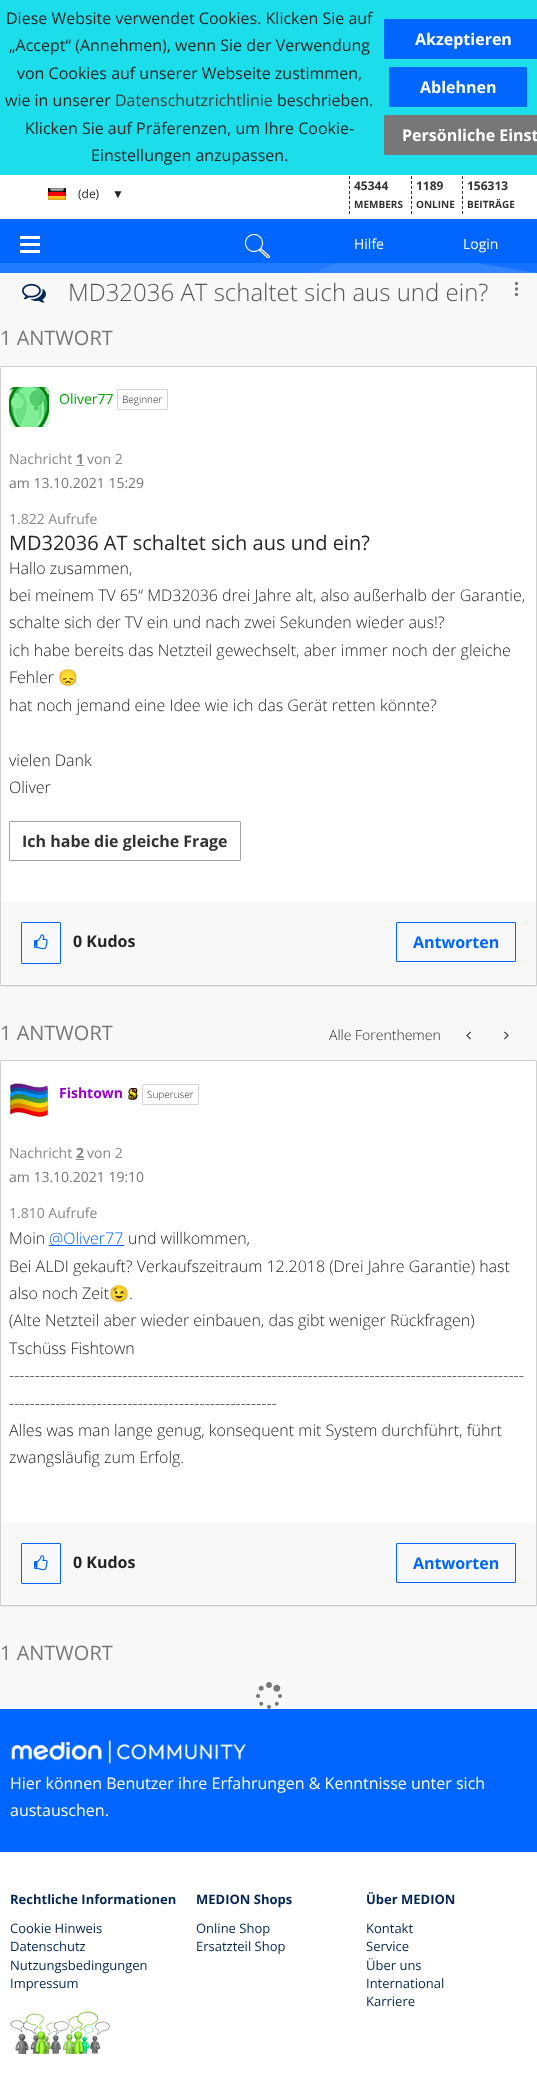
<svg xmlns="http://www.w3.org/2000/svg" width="537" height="2098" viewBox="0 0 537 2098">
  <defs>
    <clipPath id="clip1"><rect x="0" y="263" width="537" height="10"/></clipPath>
    <clipPath id="clip2"><path d="M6 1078H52V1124H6ZM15 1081H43C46.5 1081 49 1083.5 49 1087V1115C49 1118.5 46.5 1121 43 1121H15C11.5 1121 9 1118.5 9 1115V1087C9 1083.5 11.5 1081 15 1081Z" clip-rule="evenodd"/></clipPath>
  </defs>
  <rect width="100%" height="100%" fill="rgb(248,248,248)"/>
  <rect x="0" y="0" width="537" height="175" fill="rgb(28,221,234)"/>
  <g font-family="Open Sans" font-size="16" fill="rgb(37,37,37)">
    <text x="6" y="24">Diese Website verwendet Cookies. Klicken Sie auf</text>
    <text x="9" y="51">„Accept“ (Annehmen), wenn Sie der Verwendung</text>
    <text x="17" y="79">von Cookies auf unserer Webseite zustimmen,</text>
    <text x="5" y="106">wie in unserer</text>
  </g>
  <text x="115" y="106" font-family="Open Sans" font-size="16" fill="rgb(62,62,62)">Datenschutzrichtlinie</text>
  <g font-family="Open Sans" font-size="16" fill="rgb(37,37,37)">
    <text x="277" y="106">beschrieben.</text>
    <text x="25" y="134">Klicken Sie auf Präferenzen, um Ihre Cookie-</text>
    <text x="91" y="161">Einstellungen anzupassen.</text>
  </g>
  <rect x="384.5" y="19.5" width="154" height="39" rx="0.5" fill="rgb(0,102,255)" stroke="rgb(0,102,255)"/>
  <text x="415" y="45" font-family="Open Sans" font-size="16" font-weight="bold" fill="rgb(255,255,255)">Akzeptieren</text>
  <rect x="389.5" y="67.5" width="137" height="39" rx="0.5" fill="rgb(0,102,255)" stroke="rgb(0,102,255)"/>
  <text x="420" y="93" font-family="Open Sans" font-size="16" font-weight="bold" fill="rgb(255,255,255)">Ablehnen</text>
  <rect x="384.5" y="115.5" width="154" height="39" rx="0.5" fill="rgb(119,119,119)" stroke="rgb(119,119,119)"/>
  <text x="402" y="141" font-family="Open Sans" font-size="16" font-weight="bold" fill="rgb(255,255,255)">Persönliche Einst</text>
  <rect x="0" y="175" width="537" height="44" fill="rgb(255,255,255)"/>
  <image x="48" y="188" width="18" height="12" href="pic1.png"/>
  <text x="78" y="198" font-family="Open Sans" font-size="12" fill="rgb(37,37,37)">(de)</text>
  <text x="112" y="198" font-family="Liberation Sans" font-size="12" fill="rgb(37,37,37)">▼</text>
  <path d="M349.5 176V214" fill="none" stroke="rgb(51,51,51)" stroke-dasharray="3 2"/>
  <text x="354" y="190" font-family="Open Sans" font-size="12" font-weight="bold" fill="rgb(51,51,51)">45344</text>
  <text x="354" y="208" font-family="Open Sans" font-size="10" font-weight="bold" fill="rgb(51,51,51)">MEMBERS</text>
  <path d="M411.5 176V214" fill="none" stroke="rgb(51,51,51)" stroke-dasharray="3 2"/>
  <text x="416" y="190" font-family="Open Sans" font-size="12" font-weight="bold" fill="rgb(51,51,51)">1189</text>
  <text x="416" y="208" font-family="Open Sans" font-size="10" font-weight="bold" fill="rgb(51,51,51)">ONLINE</text>
  <path d="M462.5 176V214" fill="none" stroke="rgb(51,51,51)" stroke-dasharray="3 2"/>
  <text x="467" y="190" font-family="Open Sans" font-size="12" font-weight="bold" fill="rgb(51,51,51)">156313</text>
  <text x="467" y="208" font-family="Open Sans" font-size="10" font-weight="bold" fill="rgb(51,51,51)">BEITRÄGE</text>
  <rect x="0" y="219" width="537" height="44" fill="rgb(0,102,255)"/>
  <image x="20" y="236" width="20" height="17" href="pic2.png"/>
  <image x="245" y="234" width="25" height="24" href="pic3.png"/>
  <g font-family="Open Sans" font-size="14" fill="rgb(255,255,255)">
    <text x="354" y="249">Hilfe</text>
    <text x="463" y="249">Login</text>
  </g>
  <rect x="476" y="263" width="61" height="10" fill="rgb(0,102,255)"/>
  <g clip-path="url(#clip1)">
    <path d="M0 185L537 273H0Z" fill="rgb(33,122,255)"/>
    <path d="M313 273H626V138Z" fill="rgba(255,255,255,0.08)"/>
  </g>
  <circle cx="516.5" cy="283.5" r="1.7" fill="rgb(119,119,119)"/>
  <circle cx="516.5" cy="289" r="1.7" fill="rgb(119,119,119)"/>
  <circle cx="516.5" cy="294.5" r="1.7" fill="rgb(119,119,119)"/>
  <image x="22" y="283" width="24" height="20" href="pic4.png"/>
  <text x="68" y="301" font-family="Open Sans" font-size="24" font-weight="300" fill="rgb(85,85,85)">MD32036 AT schaltet sich aus und ein?</text>
  <text x="0" y="345" font-family="Open Sans" font-size="20" fill="rgb(119,119,119)">1 ANTWORT</text>
  <rect x="0" y="367" width="537" height="620" rx="1" fill="rgba(0,0,0,0.05)" filter="blur(0.5px)"/>
  <rect x="0.5" y="366.5" width="536" height="619" rx="0.5" fill="none" stroke="rgb(209,209,209)"/>
  <rect x="1" y="368" width="535" height="618" rx="1" fill="rgba(0,0,0,0.05)" filter="blur(0.5px)"/>
  <rect x="1" y="367" width="535" height="618" rx="1" fill="rgb(255,255,255)"/>
  <rect x="9" y="387" width="40" height="40" rx="6" fill="rgb(196,196,196)" filter="blur(0.5px)"/>
  <image x="9" y="387" width="40" height="40" href="pic5.png"/>
  <text x="59" y="404" font-family="Open Sans" font-size="14" fill="rgb(0,170,0)">Oliver77</text>
  <rect x="117.5" y="389.5" width="50" height="20" rx="0.5" fill="none" stroke="rgb(212,212,212)"/>
  <text x="122" y="403" font-family="Open Sans" font-size="10" font-weight="300" fill="rgb(37,37,37)">Beginner</text>
  <text x="9" y="464" font-family="Open Sans" font-size="14" fill="rgb(136,136,136)">Nachricht</text>
  <text x="76" y="464" font-family="Open Sans" font-size="14" font-weight="bold" fill="rgb(136,136,136)">1</text>
  <rect x="76" y="465" width="8" height="1" fill="rgb(136,136,136)"/>
  <text x="87" y="464" font-family="Open Sans" font-size="14" fill="rgb(136,136,136)">von 2</text>
  <text x="9" y="488" font-family="Open Sans" font-size="14" fill="rgb(119,119,119)">am 13.10.2021 15:29</text>
  <text x="9" y="524" font-family="Open Sans" font-size="14" fill="rgb(136,136,136)">1.822 Aufrufe</text>
  <text x="9" y="550" font-family="Open Sans" font-size="20" fill="rgb(37,37,37)">MD32036 AT schaltet sich aus und ein?</text>
  <g font-family="Open Sans" font-size="16" font-weight="300" fill="rgb(37,37,37)">
    <text>
      <tspan x="9" y="574">Hallo zusammen,</tspan>
      <tspan x="9" y="601">bei meinem TV 65“ MD32036 drei Jahre alt, also außerhalb der Garantie,</tspan>
      <tspan x="9" y="628">schalte sich der TV ein und nach zwei Sekunden wieder aus!?</tspan>
      <tspan x="9" y="656">ich habe bereits das Netzteil gewechselt, aber immer noch der gleiche</tspan>
      <tspan x="9" y="683">Fehler</tspan>
    </text>
  </g>
  <text x="58" y="683" font-family="Noto Color Emoji" font-size="16" fill="rgb(37,37,37)">😞</text>
  <g font-family="Open Sans" font-size="16" font-weight="300" fill="rgb(37,37,37)">
    <text x="9" y="711">hat noch jemand eine Idee wie ich das Gerät retten könnte?</text>
    <text>
      <tspan x="9" y="766">vielen Dank</tspan>
      <tspan x="9" y="793">Oliver</tspan>
    </text>
  </g>
  <rect x="9.5" y="821.5" width="231" height="39" rx="0.5" fill="none" stroke="rgb(161,161,161)"/>
  <text x="22" y="847" font-family="Open Sans" font-size="16" font-weight="bold" fill="rgb(51,51,51)">Ich habe die gleiche Frage</text>
  <rect x="1" y="902" width="535" height="82" rx="1" fill="rgb(248,248,248)"/>
  <rect x="21.5" y="922.5" width="39" height="41" rx="0.5" fill="none" stroke="rgb(0,102,255)"/>
  <image x="34" y="934" width="14" height="16" href="pic6.png"/>
  <text x="73" y="947" font-family="Open Sans" font-size="16" font-weight="bold" fill="rgb(37,37,37)">0 Kudos</text>
  <rect x="396.5" y="922.5" width="119" height="39" rx="0.5" fill="none" stroke="rgb(0,102,255)"/>
  <text x="413" y="948" font-family="Open Sans" font-size="16" font-weight="bold" fill="rgb(0,102,255)">Antworten</text>
  <text x="0" y="1040" font-family="Open Sans" font-size="20" fill="rgb(119,119,119)">1 ANTWORT</text>
  <text x="329" y="1040" font-family="Open Sans" font-size="14" font-weight="300" fill="rgb(37,37,37)">Alle Forenthemen</text>
  <image x="466" y="1031" width="5" height="9" href="pic7.png"/>
  <image x="504" y="1031" width="5" height="9" href="pic8.png"/>
  <rect x="0" y="1061" width="537" height="546" rx="1" fill="rgba(0,0,0,0.05)" filter="blur(0.5px)"/>
  <rect x="0.5" y="1060.5" width="536" height="545" rx="0.5" fill="none" stroke="rgb(209,209,209)"/>
  <rect x="1" y="1062" width="535" height="544" rx="1" fill="rgba(0,0,0,0.05)" filter="blur(0.5px)"/>
  <rect x="1" y="1061" width="535" height="544" rx="1" fill="rgb(255,255,255)"/>
  <g clip-path="url(#clip2)">
    <rect x="9" y="1081" width="40" height="40" rx="6" fill="rgb(196,196,196)" filter="blur(0.5px)"/>
  </g>
  <image x="10" y="1083" width="38" height="34" href="pic9.png"/>
  <text x="59" y="1098" font-family="Open Sans" font-size="14" font-weight="bold" fill="rgb(153,0,204)">Fishtown</text>
  <image x="128" y="1088" width="10" height="12" href="pic10.png"/>
  <rect x="142.5" y="1084.5" width="56" height="20" rx="0.5" fill="none" stroke="rgb(212,212,212)"/>
  <text x="147" y="1098" font-family="Open Sans" font-size="10" font-weight="300" fill="rgb(37,37,37)">Superuser</text>
  <text x="9" y="1158" font-family="Open Sans" font-size="14" fill="rgb(136,136,136)">Nachricht</text>
  <text x="76" y="1158" font-family="Open Sans" font-size="14" font-weight="bold" fill="rgb(136,136,136)">2</text>
  <rect x="76" y="1159" width="8" height="1" fill="rgb(136,136,136)"/>
  <text x="87" y="1158" font-family="Open Sans" font-size="14" fill="rgb(136,136,136)">von 2</text>
  <text x="9" y="1182" font-family="Open Sans" font-size="14" fill="rgb(119,119,119)">am 13.10.2021 19:10</text>
  <text x="9" y="1218" font-family="Open Sans" font-size="14" fill="rgb(136,136,136)">1.810 Aufrufe</text>
  <text x="9" y="1244" font-family="Open Sans" font-size="16" font-weight="300" fill="rgb(37,37,37)">Moin</text>
  <rect x="49" y="1245" width="75" height="1" fill="rgb(0,102,255)"/>
  <text x="49" y="1244" font-family="Open Sans" font-size="16" font-weight="300" fill="rgb(0,102,255)">@Oliver77</text>
  <g font-family="Open Sans" font-size="16" font-weight="300" fill="rgb(37,37,37)">
    <text x="128" y="1244">und willkommen,</text>
    <text>
      <tspan x="9" y="1272">Bei ALDI gekauft? Verkaufszeitraum 12.2018 (Drei Jahre Garantie) hast</tspan>
      <tspan x="9" y="1299">also noch Zeit</tspan>
    </text>
  </g>
  <text x="109" y="1299" font-family="Noto Color Emoji" font-size="16" fill="rgb(37,37,37)">😉</text>
  <g font-family="Open Sans" font-size="16" font-weight="300" fill="rgb(37,37,37)">
    <text x="129" y="1299">.</text>
    <text>
      <tspan x="9" y="1326">(Alte Netzteil aber wieder einbauen, das gibt weniger Rückfragen)</tspan>
      <tspan x="9" y="1354">Tschüss Fishtown</tspan>
      <tspan x="9" y="1381">----------------------------------------------------------------------------------------------------</tspan>
      <tspan x="9" y="1409">----------------------------------------------------</tspan>
      <tspan x="9" y="1436">Alles was man lange genug, konsequent mit System durchführt, führt</tspan>
      <tspan x="9" y="1463">zwangsläufig zum Erfolg.</tspan>
    </text>
  </g>
  <rect x="1" y="1523" width="535" height="81" rx="1" fill="rgb(248,248,248)"/>
  <rect x="21.5" y="1543.5" width="39" height="40" rx="0.5" fill="none" stroke="rgb(0,102,255)"/>
  <image x="34" y="1555" width="14" height="16" href="pic6.png"/>
  <text x="73" y="1568" font-family="Open Sans" font-size="16" font-weight="bold" fill="rgb(37,37,37)">0 Kudos</text>
  <rect x="396.5" y="1543.5" width="119" height="39" rx="0.5" fill="none" stroke="rgb(0,102,255)"/>
  <text x="413" y="1569" font-family="Open Sans" font-size="16" font-weight="bold" fill="rgb(0,102,255)">Antworten</text>
  <text x="0" y="1660" font-family="Open Sans" font-size="20" fill="rgb(119,119,119)">1 ANTWORT</text>
  <rect x="0" y="1708" width="537" height="1" fill="rgb(255,255,255)"/>
  <image x="256" y="1682" width="26" height="27" href="pic11.png"/>
  <rect x="0" y="1709" width="537" height="143" fill="rgb(0,102,255)"/>
  <image x="11" y="1740" width="235" height="24" href="pic12.png"/>
  <g font-family="Open Sans" font-size="16" fill="rgb(255,255,255)">
    <text>
      <tspan x="10" y="1789">Hier können Benutzer ihre Erfahrungen &amp; Kenntnisse unter sich</tspan>
      <tspan x="10" y="1816">austauschen.</tspan>
    </text>
  </g>
  <rect x="0" y="1852" width="537" height="246" fill="rgb(255,255,255)"/>
  <text x="10" y="1904" font-family="Open Sans" font-size="13" font-weight="bold" fill="rgb(3,38,84)">Rechtliche Informationen</text>
  <g font-family="Open Sans" font-size="13" fill="rgb(3,38,84)">
    <text>
      <tspan x="10" y="1933">Cookie Hinweis</tspan>
      <tspan x="10" y="1951">Datenschutz</tspan>
      <tspan x="10" y="1970">Nutzungsbedingungen</tspan>
      <tspan x="10" y="1988">Impressum</tspan>
    </text>
  </g>
  <image x="10" y="2011" width="100" height="43" href="pic13.png"/>
  <text x="196" y="1904" font-family="Open Sans" font-size="13" font-weight="bold" fill="rgb(3,38,84)">MEDION Shops</text>
  <g font-family="Open Sans" font-size="13" fill="rgb(3,38,84)">
    <text>
      <tspan x="196" y="1933">Online Shop</tspan>
      <tspan x="196" y="1951">Ersatzteil Shop</tspan>
    </text>
  </g>
  <text x="366" y="1904" font-family="Open Sans" font-size="13" font-weight="bold" fill="rgb(3,38,84)">Über MEDION</text>
  <g font-family="Open Sans" font-size="13" fill="rgb(3,38,84)">
    <text>
      <tspan x="366" y="1933">Kontakt</tspan>
      <tspan x="366" y="1951">Service</tspan>
      <tspan x="366" y="1970">Über uns</tspan>
      <tspan x="366" y="1988">International</tspan>
      <tspan x="366" y="2006">Karriere</tspan>
    </text>
  </g>
</svg>
